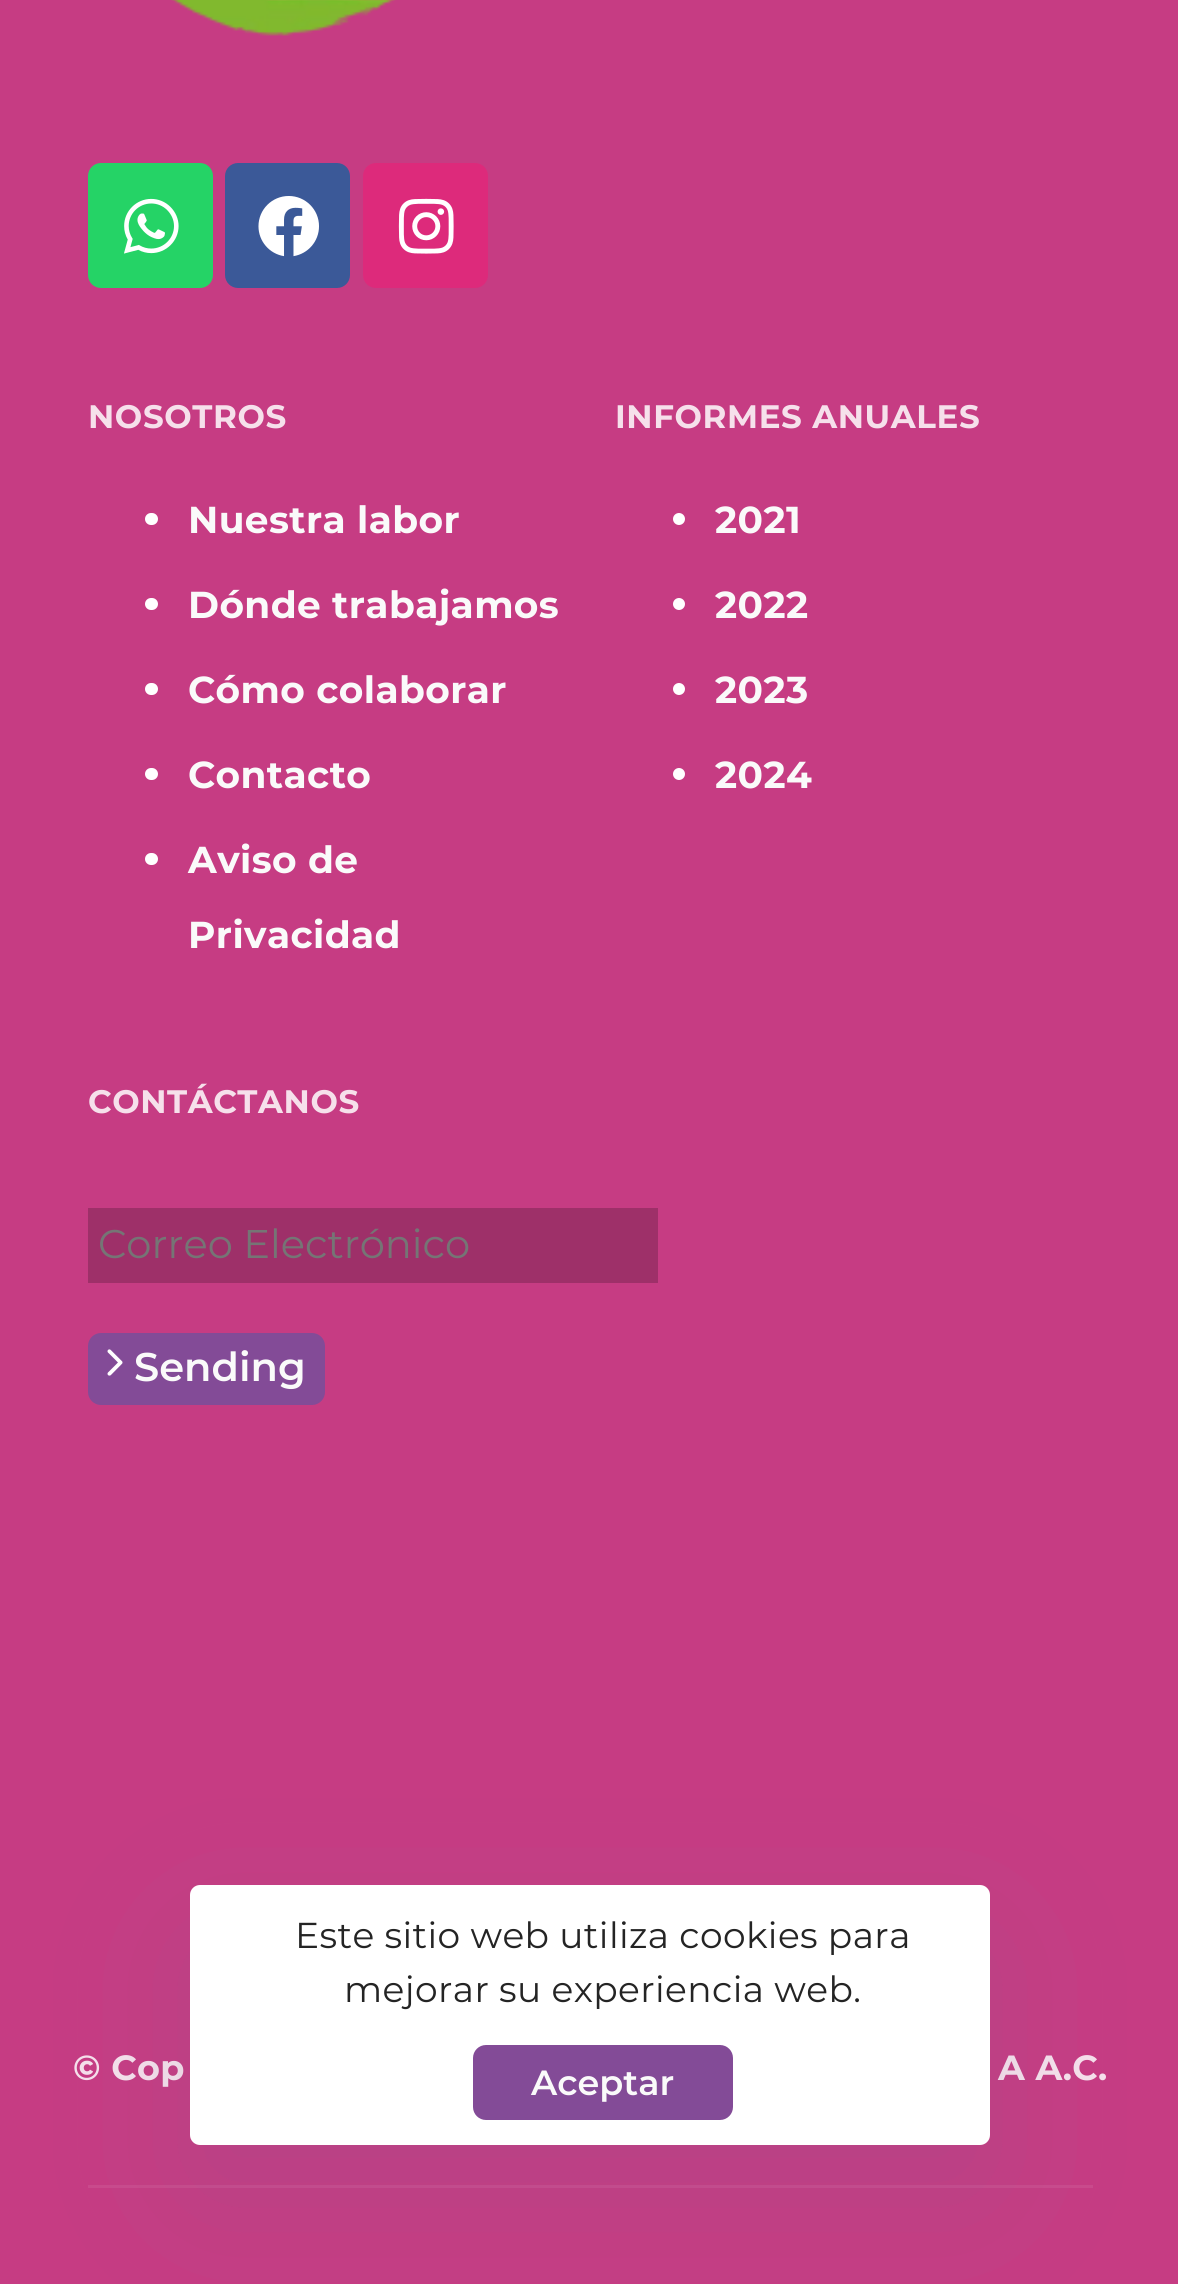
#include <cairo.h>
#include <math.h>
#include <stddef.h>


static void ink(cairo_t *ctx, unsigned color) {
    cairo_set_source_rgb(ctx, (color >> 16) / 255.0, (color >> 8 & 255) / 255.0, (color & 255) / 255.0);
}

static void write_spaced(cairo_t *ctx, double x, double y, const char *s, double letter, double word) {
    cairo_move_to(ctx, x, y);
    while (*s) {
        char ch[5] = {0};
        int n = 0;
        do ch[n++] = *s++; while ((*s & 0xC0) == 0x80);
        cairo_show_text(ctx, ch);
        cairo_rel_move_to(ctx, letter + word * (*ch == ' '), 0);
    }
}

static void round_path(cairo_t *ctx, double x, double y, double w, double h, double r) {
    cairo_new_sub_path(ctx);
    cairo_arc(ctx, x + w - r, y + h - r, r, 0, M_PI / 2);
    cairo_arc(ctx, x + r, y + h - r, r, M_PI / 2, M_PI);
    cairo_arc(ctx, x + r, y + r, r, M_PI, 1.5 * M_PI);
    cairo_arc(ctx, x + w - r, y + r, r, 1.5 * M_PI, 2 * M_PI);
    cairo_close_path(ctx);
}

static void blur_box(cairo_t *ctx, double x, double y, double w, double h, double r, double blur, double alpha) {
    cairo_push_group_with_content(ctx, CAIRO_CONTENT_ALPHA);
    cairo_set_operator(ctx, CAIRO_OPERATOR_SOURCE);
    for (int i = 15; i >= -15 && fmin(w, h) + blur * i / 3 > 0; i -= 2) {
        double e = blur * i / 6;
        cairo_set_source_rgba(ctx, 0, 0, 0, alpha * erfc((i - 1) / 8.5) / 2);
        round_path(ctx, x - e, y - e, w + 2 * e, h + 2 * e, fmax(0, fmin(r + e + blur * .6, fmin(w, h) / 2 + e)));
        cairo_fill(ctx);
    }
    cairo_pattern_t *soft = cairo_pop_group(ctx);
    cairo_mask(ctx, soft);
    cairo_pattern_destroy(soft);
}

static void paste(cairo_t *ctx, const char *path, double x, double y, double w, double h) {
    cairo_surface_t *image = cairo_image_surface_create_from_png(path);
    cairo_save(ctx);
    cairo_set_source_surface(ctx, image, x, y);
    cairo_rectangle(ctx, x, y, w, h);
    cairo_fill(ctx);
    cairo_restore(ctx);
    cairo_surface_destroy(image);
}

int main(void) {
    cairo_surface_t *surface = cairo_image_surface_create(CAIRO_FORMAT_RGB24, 1178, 2284);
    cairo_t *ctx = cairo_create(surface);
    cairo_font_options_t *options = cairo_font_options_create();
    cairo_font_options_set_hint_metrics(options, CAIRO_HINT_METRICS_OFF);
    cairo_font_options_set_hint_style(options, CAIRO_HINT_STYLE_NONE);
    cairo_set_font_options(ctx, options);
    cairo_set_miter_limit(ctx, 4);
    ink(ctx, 0xC63C83);
    cairo_paint(ctx);
    paste(ctx, "media/1.png", 171, 0, 225, 36);
    ink(ctx, 0x25D366);
    round_path(ctx, 88, 163, 125, 125, 13);
    cairo_fill(ctx);
    paste(ctx, "media/2.png", 124, 198, 55, 56);
    ink(ctx, 0x3B5998);
    round_path(ctx, 225, 163, 125, 125, 13);
    cairo_fill(ctx);
    paste(ctx, "media/3.png", 258, 196, 61, 61);
    ink(ctx, 0xDD2A7B);
    round_path(ctx, 363, 163, 125, 125, 13);
    cairo_fill(ctx);
    paste(ctx, "media/4.png", 398, 198, 56, 56);
    cairo_select_font_face(ctx, "Montserrat", CAIRO_FONT_SLANT_NORMAL, CAIRO_FONT_WEIGHT_BOLD);
    cairo_set_font_size(ctx, 32.5);
    ink(ctx, 0xF6E0EB);
    write_spaced(ctx, 88, 428, "NOSOTROS", 0.6, 0);
    ink(ctx, 0xFFFFFF);
    round_path(ctx, 145, 513, 13, 12, 6);
    cairo_fill(ctx);
    cairo_set_font_size(ctx, 37.5);
    ink(ctx, 0xFAFAFA);
    write_spaced(ctx, 188, 533, "Nuestra labor", 0.4, 0);
    ink(ctx, 0xFFFFFF);
    round_path(ctx, 145, 598, 13, 12, 6);
    cairo_fill(ctx);
    ink(ctx, 0xFAFAFA);
    write_spaced(ctx, 188, 618, "Dónde trabajamos", 0.4, 0);
    ink(ctx, 0xFFFFFF);
    round_path(ctx, 145, 683, 13, 12, 6);
    cairo_fill(ctx);
    ink(ctx, 0xFAFAFA);
    write_spaced(ctx, 188, 703, "Cómo colaborar", 0.4, 0);
    ink(ctx, 0xFFFFFF);
    round_path(ctx, 145, 768, 13, 12, 6);
    cairo_fill(ctx);
    ink(ctx, 0xFAFAFA);
    write_spaced(ctx, 188, 788, "Contacto", 0.4, 0);
    ink(ctx, 0xFFFFFF);
    round_path(ctx, 145, 853, 13, 12, 6);
    cairo_fill(ctx);
    ink(ctx, 0xFAFAFA);
    write_spaced(ctx, 188, 873, "Aviso de", 0.4, 0);
    write_spaced(ctx, 188, 948, "Privacidad", 0.4, 0);
    cairo_set_font_size(ctx, 32.5);
    ink(ctx, 0xF6E0EB);
    write_spaced(ctx, 615, 428, "INFORMES ANUALES", 0.6, 0);
    ink(ctx, 0xFFFFFF);
    cairo_new_path(ctx);
    cairo_arc(ctx, 679, 519, 6, 0, 2 * M_PI);
    cairo_fill(ctx);
    cairo_set_font_size(ctx, 37.5);
    ink(ctx, 0xFAFAFA);
    write_spaced(ctx, 715, 533, "2021", 0.4, 0);
    ink(ctx, 0xFFFFFF);
    cairo_new_path(ctx);
    cairo_arc(ctx, 679, 604, 6, 0, 2 * M_PI);
    cairo_fill(ctx);
    ink(ctx, 0xFAFAFA);
    write_spaced(ctx, 715, 618, "2022", 0.4, 0);
    ink(ctx, 0xFFFFFF);
    cairo_new_path(ctx);
    cairo_arc(ctx, 679, 689, 6, 0, 2 * M_PI);
    cairo_fill(ctx);
    ink(ctx, 0xFAFAFA);
    write_spaced(ctx, 715, 703, "2023", 0.4, 0);
    ink(ctx, 0xFFFFFF);
    cairo_new_path(ctx);
    cairo_arc(ctx, 679, 774, 6, 0, 2 * M_PI);
    cairo_fill(ctx);
    ink(ctx, 0xFAFAFA);
    write_spaced(ctx, 715, 788, "2024", 0.4, 0);
    cairo_set_font_size(ctx, 32.5);
    ink(ctx, 0xF6E0EB);
    write_spaced(ctx, 88, 1113, "CONTÁCTANOS", 0.6, 0);
    ink(ctx, 0x9E3069);
    cairo_rectangle(ctx, 88, 1208, 570, 75);
    cairo_fill(ctx);
    cairo_select_font_face(ctx, "Montserrat", CAIRO_FONT_SLANT_NORMAL, CAIRO_FONT_WEIGHT_NORMAL);
    cairo_set_font_size(ctx, 40);
    ink(ctx, 0x757575);
    cairo_move_to(ctx, 98, 1258);
    cairo_show_text(ctx, "Correo Electrónico");
    ink(ctx, 0x834B97);
    round_path(ctx, 88, 1333, 237, 72, 13);
    cairo_fill(ctx);
    paste(ctx, "media/5.png", 107, 1349, 16, 27);
    cairo_select_font_face(ctx, "Montserrat SemiBold", CAIRO_FONT_SLANT_NORMAL, CAIRO_FONT_WEIGHT_NORMAL);
    ink(ctx, 0xFAFAFA);
    cairo_move_to(ctx, 134, 1381);
    cairo_show_text(ctx, "Sending");
    cairo_select_font_face(ctx, "Montserrat", CAIRO_FONT_SLANT_NORMAL, CAIRO_FONT_WEIGHT_BOLD);
    cairo_set_font_size(ctx, 35);
    ink(ctx, 0xF6E0EB);
    write_spaced(ctx, 73, 2080, "© Cop", 0.4, 0);
    write_spaced(ctx, 998, 2080, "A A.C.", 0.4, 0);
    ink(ctx, 0xCA4A8C);
    cairo_rectangle(ctx, 88, 2185, 1005, 3);
    cairo_fill(ctx);
    ink(ctx, 0x5C6B95);
    blur_box(ctx, 190, 1935, 800, 260, 10, 75, 0.15);
    ink(ctx, 0xFFFFFF);
    round_path(ctx, 190, 1885, 800, 260, 10);
    cairo_fill(ctx);
    cairo_select_font_face(ctx, "Montserrat", CAIRO_FONT_SLANT_NORMAL, CAIRO_FONT_WEIGHT_NORMAL);
    cairo_set_font_size(ctx, 36);
    ink(ctx, 0x242424);
    write_spaced(ctx, 295, 1948, "Este sitio web utiliza cookies para", 0.4, 0);
    write_spaced(ctx, 344, 2002, "mejorar su experiencia web.", 0.4, 0);
    ink(ctx, 0x834B97);
    round_path(ctx, 473, 2045, 260, 75, 13);
    cairo_fill(ctx);
    cairo_select_font_face(ctx, "Montserrat SemiBold", CAIRO_FONT_SLANT_NORMAL, CAIRO_FONT_WEIGHT_NORMAL);
    cairo_set_font_size(ctx, 35);
    ink(ctx, 0xFAFAFA);
    cairo_move_to(ctx, 531, 2095);
    cairo_show_text(ctx, "Aceptar");
    cairo_surface_write_to_png(surface, "image.png");
    cairo_font_options_destroy(options);
    cairo_destroy(ctx);
    cairo_surface_destroy(surface);
    return 0;
}
